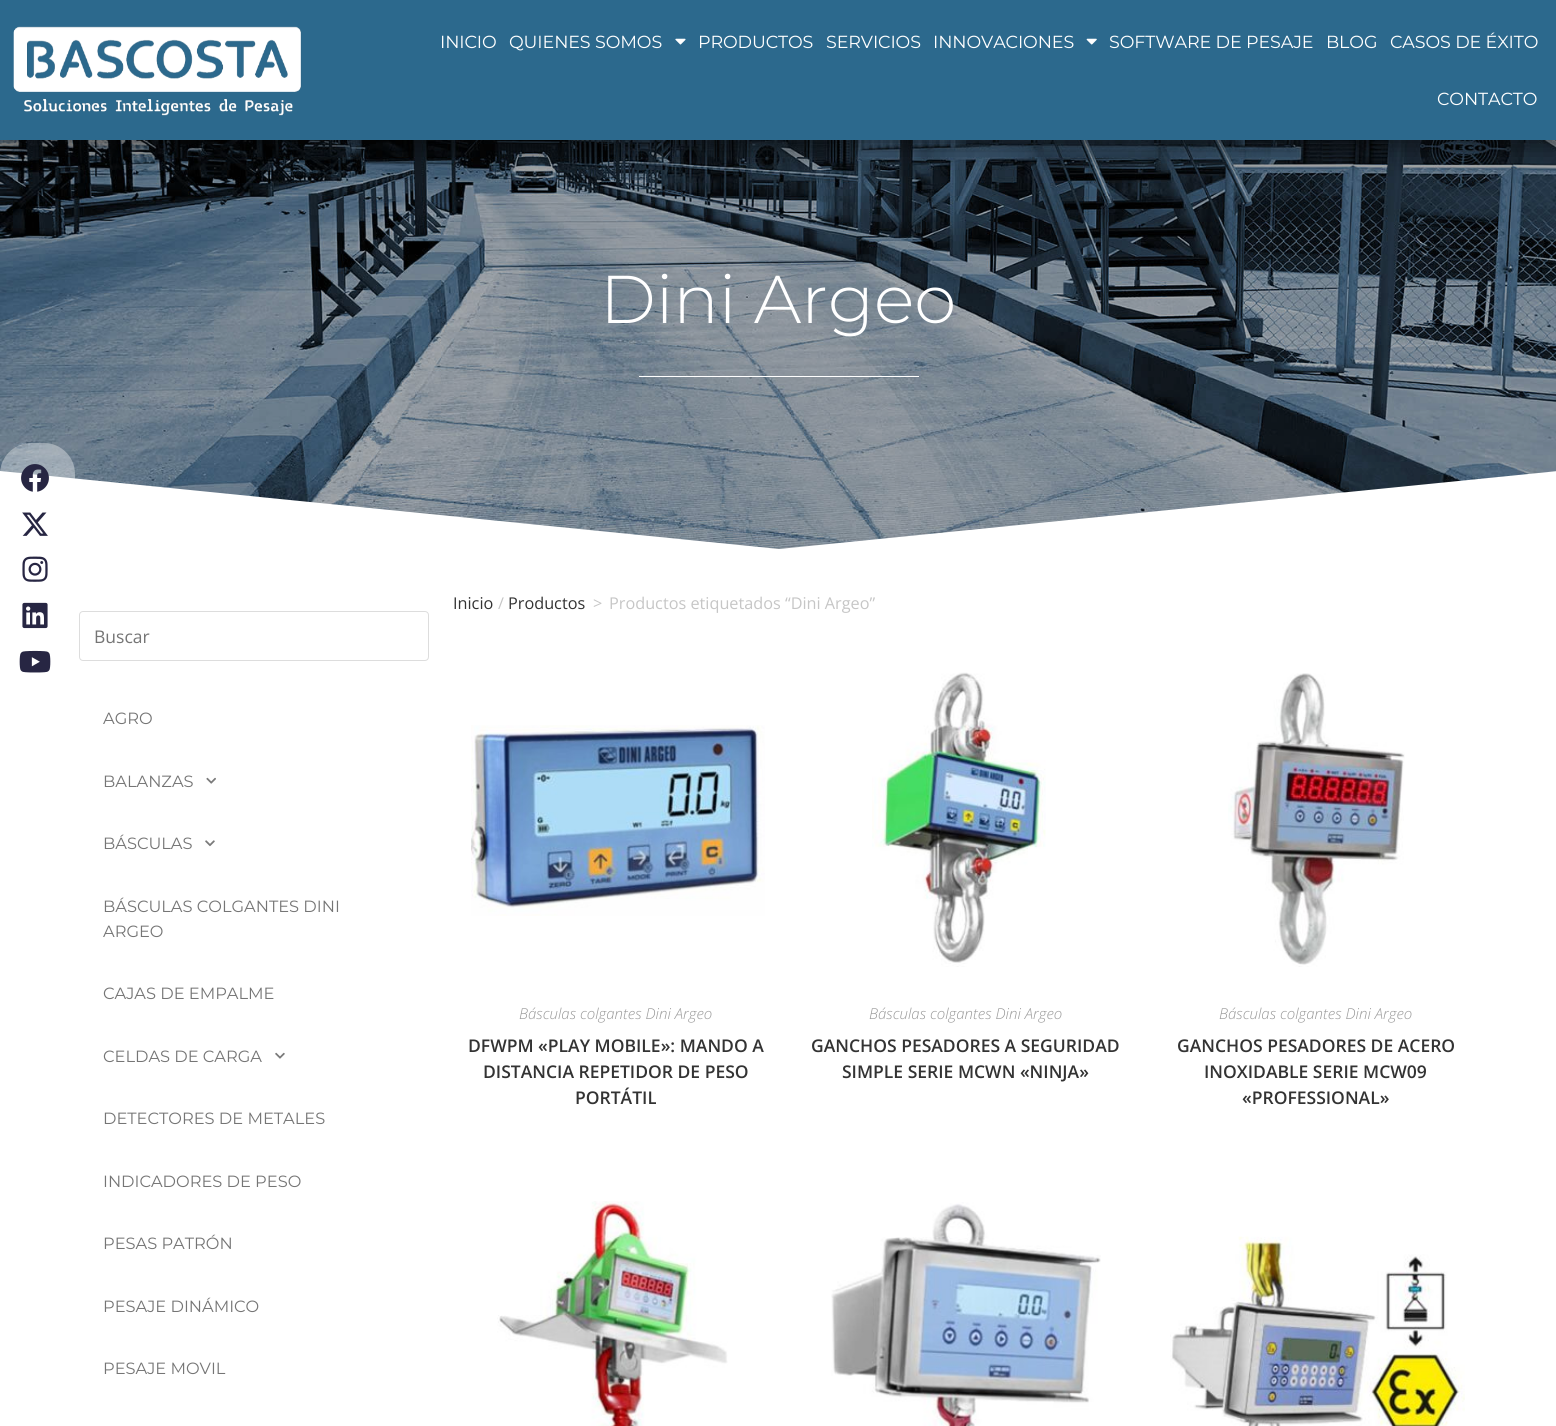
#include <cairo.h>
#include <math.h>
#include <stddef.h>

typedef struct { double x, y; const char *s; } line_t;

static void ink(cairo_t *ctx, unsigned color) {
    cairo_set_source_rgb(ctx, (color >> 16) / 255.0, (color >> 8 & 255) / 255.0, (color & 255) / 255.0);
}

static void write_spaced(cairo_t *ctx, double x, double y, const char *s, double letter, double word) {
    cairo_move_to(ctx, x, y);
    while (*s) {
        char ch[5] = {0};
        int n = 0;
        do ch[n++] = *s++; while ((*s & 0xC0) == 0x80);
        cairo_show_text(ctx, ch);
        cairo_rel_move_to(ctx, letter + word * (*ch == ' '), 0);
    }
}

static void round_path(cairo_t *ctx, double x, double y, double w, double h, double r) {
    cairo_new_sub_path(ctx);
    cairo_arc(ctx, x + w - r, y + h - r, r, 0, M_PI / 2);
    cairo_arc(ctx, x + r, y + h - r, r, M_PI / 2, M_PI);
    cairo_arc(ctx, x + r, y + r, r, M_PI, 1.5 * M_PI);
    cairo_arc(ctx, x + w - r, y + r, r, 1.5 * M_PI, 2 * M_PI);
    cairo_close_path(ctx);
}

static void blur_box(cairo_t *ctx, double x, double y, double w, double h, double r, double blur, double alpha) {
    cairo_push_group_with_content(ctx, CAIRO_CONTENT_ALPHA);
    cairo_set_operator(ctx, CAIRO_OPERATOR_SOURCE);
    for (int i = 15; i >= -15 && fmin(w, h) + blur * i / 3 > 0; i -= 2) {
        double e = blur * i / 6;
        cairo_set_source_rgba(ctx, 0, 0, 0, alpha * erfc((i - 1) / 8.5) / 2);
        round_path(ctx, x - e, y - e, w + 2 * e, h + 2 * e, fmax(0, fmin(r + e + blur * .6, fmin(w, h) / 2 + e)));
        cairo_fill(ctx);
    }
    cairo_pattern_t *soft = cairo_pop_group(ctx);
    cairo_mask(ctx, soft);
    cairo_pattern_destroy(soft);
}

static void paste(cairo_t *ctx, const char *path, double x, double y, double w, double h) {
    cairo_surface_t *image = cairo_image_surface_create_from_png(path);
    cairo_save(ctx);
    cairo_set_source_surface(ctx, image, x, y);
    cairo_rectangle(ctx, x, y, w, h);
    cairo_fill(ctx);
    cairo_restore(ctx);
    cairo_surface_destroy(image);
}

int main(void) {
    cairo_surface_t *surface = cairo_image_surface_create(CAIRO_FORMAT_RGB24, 1556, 1426);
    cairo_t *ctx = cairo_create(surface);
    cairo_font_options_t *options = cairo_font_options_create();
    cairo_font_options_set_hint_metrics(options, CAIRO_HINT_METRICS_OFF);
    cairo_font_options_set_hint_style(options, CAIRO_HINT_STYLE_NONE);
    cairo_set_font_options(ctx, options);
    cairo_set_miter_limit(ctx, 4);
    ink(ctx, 0xFFFFFF);
    cairo_paint(ctx);
    paste(ctx, "media/9.png", 0, 140, 1556, 409);
    ink(ctx, 0xFFFFFF);
    cairo_new_path(ctx);
    cairo_move_to(ctx, 779, 549);
    cairo_line_to(ctx, 0, 471);
    cairo_line_to(ctx, 0, 554);
    cairo_line_to(ctx, 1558, 554);
    cairo_line_to(ctx, 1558, 471);
    cairo_close_path(ctx);
    cairo_fill(ctx);
    cairo_set_source_rgba(ctx, 1, 1, 1, 0.36);
    round_path(ctx, 0, 443, 75, 255, 31);
    cairo_fill(ctx);
    paste(ctx, "media/1.png", 21, 464, 28, 28);
    paste(ctx, "media/2.png", 22, 512, 26, 24);
    paste(ctx, "media/3.png", 22, 556, 26, 26);
    paste(ctx, "media/4.png", 22, 602, 26, 27);
    paste(ctx, "media/5.png", 19, 650, 32, 23);
    ink(ctx, 0x000000);
    blur_box(ctx, -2, 5, 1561, 145, 0, 14, 0.5);
    ink(ctx, 0x2C698D);
    cairo_rectangle(ctx, 0, 0, 1556, 140);
    cairo_fill(ctx);
    paste(ctx, "media/6.png", 13, 26, 289, 90);
    cairo_select_font_face(ctx, "Montserrat", CAIRO_FONT_SLANT_NORMAL, CAIRO_FONT_WEIGHT_NORMAL);
    cairo_set_font_size(ctx, 17.5);
    ink(ctx, 0xFFFFFF);
    write_spaced(ctx, 440, 48, "INICIO", -0.1, 0);
    write_spaced(ctx, 509, 48, "QUIENES SOMOS", -0.1, 0);
    paste(ctx, "media/7.png", 675, 38, 11, 7);
    {
        static const line_t items[] = {
            {698, 48, "PRODUCTOS"},
            {826, 48, "SERVICIOS"},
            {933, 48, "INNOVACIONES"},
        };
        for (size_t i = 0; i < sizeof items / sizeof *items; i++) {
            write_spaced(ctx, items[i].x, items[i].y, items[i].s, -0.1, 0);
        }
    }
    paste(ctx, "media/8.png", 1086, 38, 11, 7);
    {
        static const line_t items[] = {
            {1109, 48, "SOFTWARE DE PESAJE"},
            {1326, 48, "BLOG"},
            {1390, 48, "CASOS DE ÉXITO"},
            {1437, 105, "CONTACTO"},
        };
        for (size_t i = 0; i < sizeof items / sizeof *items; i++) {
            write_spaced(ctx, items[i].x, items[i].y, items[i].s, -0.1, 0);
        }
    }
    cairo_select_font_face(ctx, "Montserrat Light", CAIRO_FONT_SLANT_NORMAL, CAIRO_FONT_WEIGHT_NORMAL);
    cairo_set_font_size(ctx, 67.5);
    cairo_move_to(ctx, 600, 323);
    cairo_show_text(ctx, "Dini Argeo");
    cairo_rectangle(ctx, 639, 376, 280, 1);
    cairo_fill(ctx);
    round_path(ctx, 79.5, 611.5, 349, 49, 3.5);
    ink(ctx, 0xDDDDDD);
    cairo_set_line_width(ctx, 1);
    cairo_stroke(ctx);
    cairo_select_font_face(ctx, "Open Sans", CAIRO_FONT_SLANT_NORMAL, CAIRO_FONT_WEIGHT_NORMAL);
    cairo_set_font_size(ctx, 17.5);
    ink(ctx, 0x757575);
    cairo_move_to(ctx, 94, 643);
    cairo_show_text(ctx, "Buscar");
    cairo_select_font_face(ctx, "Montserrat", CAIRO_FONT_SLANT_NORMAL, CAIRO_FONT_WEIGHT_NORMAL);
    cairo_set_font_size(ctx, 16.25);
    cairo_move_to(ctx, 103, 724);
    cairo_show_text(ctx, "AGRO");
    cairo_move_to(ctx, 103, 787);
    cairo_show_text(ctx, "BALANZAS");
    paste(ctx, "media/10.png", 206, 777, 10, 7);
    cairo_move_to(ctx, 103, 849);
    cairo_show_text(ctx, "BÁSCULAS");
    paste(ctx, "media/11.png", 205, 840, 10, 7);
    {
        static const line_t items[] = {
            {103, 912, "BÁSCULAS COLGANTES DINI"},
            {103, 937, "ARGEO"},
            {103, 999, "CAJAS DE EMPALME"},
            {103, 1062, "CELDAS DE CARGA"},
        };
        for (size_t i = 0; i < sizeof items / sizeof *items; i++) {
            cairo_move_to(ctx, items[i].x, items[i].y);
            cairo_show_text(ctx, items[i].s);
        }
    }
    paste(ctx, "media/12.png", 275, 1052, 10, 7);
    {
        static const line_t items[] = {
            {103, 1124, "DETECTORES DE METALES"},
            {103, 1187, "INDICADORES DE PESO"},
            {103, 1249, "PESAS PATRÓN"},
            {103, 1312, "PESAJE DINÁMICO"},
            {103, 1374, "PESAJE MOVIL"},
        };
        for (size_t i = 0; i < sizeof items / sizeof *items; i++) {
            cairo_move_to(ctx, items[i].x, items[i].y);
            cairo_show_text(ctx, items[i].s);
        }
    }
    cairo_select_font_face(ctx, "Open Sans", CAIRO_FONT_SLANT_NORMAL, CAIRO_FONT_WEIGHT_NORMAL);
    ink(ctx, 0x333333);
    cairo_move_to(ctx, 453, 609);
    cairo_show_text(ctx, "Inicio");
    ink(ctx, 0xC6C6C6);
    cairo_move_to(ctx, 498, 609);
    cairo_show_text(ctx, "/");
    ink(ctx, 0x333333);
    cairo_move_to(ctx, 508, 609);
    cairo_show_text(ctx, "Productos");
    ink(ctx, 0xC6C6C6);
    cairo_move_to(ctx, 593, 609);
    cairo_show_text(ctx, ">");
    cairo_move_to(ctx, 609, 609);
    cairo_show_text(ctx, "Productos etiquetados “Dini Argeo”");
    paste(ctx, "media/13.png", 471, 725, 294, 191);
    cairo_select_font_face(ctx, "Open Sans Light", CAIRO_FONT_SLANT_ITALIC, CAIRO_FONT_WEIGHT_NORMAL);
    cairo_set_font_size(ctx, 15);
    ink(ctx, 0x999999);
    cairo_move_to(ctx, 519, 1019);
    cairo_show_text(ctx, "Básculas colgantes Dini Argeo");
    cairo_select_font_face(ctx, "Open Sans SemiBold", CAIRO_FONT_SLANT_NORMAL, CAIRO_FONT_WEIGHT_NORMAL);
    cairo_set_font_size(ctx, 17.5);
    ink(ctx, 0x333333);
    {
        static const line_t items[] = {
            {468, 1052, "DFWPM «PLAY MOBILE»: MANDO A"},
            {483, 1078, "DISTANCIA REPETIDOR DE PESO"},
            {575, 1104, "PORTÁTIL"},
        };
        for (size_t i = 0; i < sizeof items / sizeof *items; i++) {
            cairo_move_to(ctx, items[i].x, items[i].y);
            cairo_show_text(ctx, items[i].s);
        }
    }
    paste(ctx, "media/14.png", 872, 672, 174, 295);
    cairo_select_font_face(ctx, "Open Sans Light", CAIRO_FONT_SLANT_ITALIC, CAIRO_FONT_WEIGHT_NORMAL);
    cairo_set_font_size(ctx, 15);
    ink(ctx, 0x999999);
    cairo_move_to(ctx, 869, 1019);
    cairo_show_text(ctx, "Básculas colgantes Dini Argeo");
    cairo_select_font_face(ctx, "Open Sans SemiBold", CAIRO_FONT_SLANT_NORMAL, CAIRO_FONT_WEIGHT_NORMAL);
    cairo_set_font_size(ctx, 17.5);
    ink(ctx, 0x333333);
    cairo_move_to(ctx, 811, 1052);
    cairo_show_text(ctx, "GANCHOS PESADORES A SEGURIDAD");
    cairo_move_to(ctx, 842, 1078);
    cairo_show_text(ctx, "SIMPLE SERIE MCWN «NINJA»");
    paste(ctx, "media/15.png", 1228, 673, 177, 294);
    cairo_select_font_face(ctx, "Open Sans Light", CAIRO_FONT_SLANT_ITALIC, CAIRO_FONT_WEIGHT_NORMAL);
    cairo_set_font_size(ctx, 15);
    ink(ctx, 0x999999);
    cairo_move_to(ctx, 1219, 1019);
    cairo_show_text(ctx, "Básculas colgantes Dini Argeo");
    cairo_select_font_face(ctx, "Open Sans SemiBold", CAIRO_FONT_SLANT_NORMAL, CAIRO_FONT_WEIGHT_NORMAL);
    cairo_set_font_size(ctx, 17.5);
    ink(ctx, 0x333333);
    {
        static const line_t items[] = {
            {1177, 1052, "GANCHOS PESADORES DE ACERO"},
            {1204, 1078, "INOXIDABLE SERIE MCW09"},
            {1242, 1104, "«PROFESSIONAL»"},
        };
        for (size_t i = 0; i < sizeof items / sizeof *items; i++) {
            cairo_move_to(ctx, items[i].x, items[i].y);
            cairo_show_text(ctx, items[i].s);
        }
    }
    paste(ctx, "media/16.png", 497, 1201, 231, 225);
    paste(ctx, "media/17.png", 831, 1202, 270, 224);
    paste(ctx, "media/18.png", 1170, 1236, 295, 190);
    cairo_surface_write_to_png(surface, "image.png");
    cairo_font_options_destroy(options);
    cairo_destroy(ctx);
    cairo_surface_destroy(surface);
    return 0;
}
